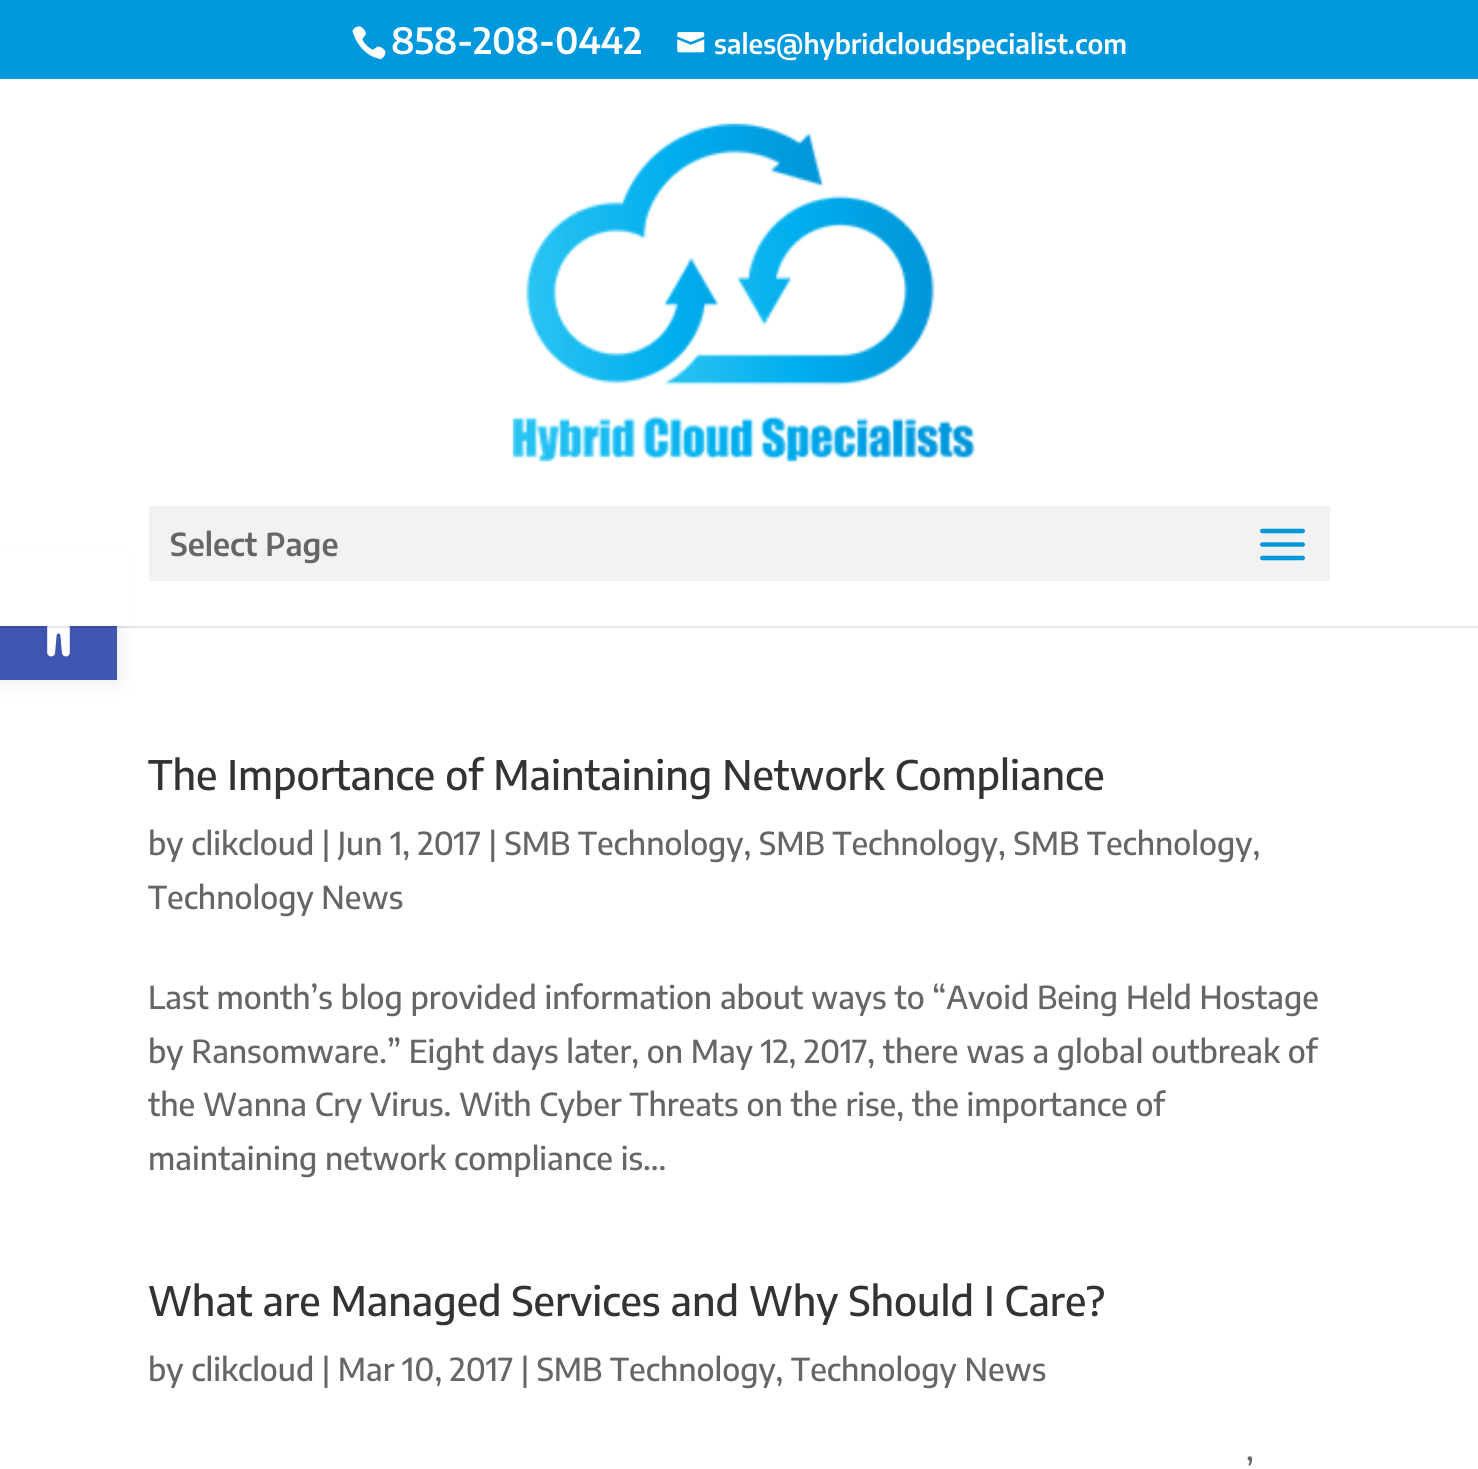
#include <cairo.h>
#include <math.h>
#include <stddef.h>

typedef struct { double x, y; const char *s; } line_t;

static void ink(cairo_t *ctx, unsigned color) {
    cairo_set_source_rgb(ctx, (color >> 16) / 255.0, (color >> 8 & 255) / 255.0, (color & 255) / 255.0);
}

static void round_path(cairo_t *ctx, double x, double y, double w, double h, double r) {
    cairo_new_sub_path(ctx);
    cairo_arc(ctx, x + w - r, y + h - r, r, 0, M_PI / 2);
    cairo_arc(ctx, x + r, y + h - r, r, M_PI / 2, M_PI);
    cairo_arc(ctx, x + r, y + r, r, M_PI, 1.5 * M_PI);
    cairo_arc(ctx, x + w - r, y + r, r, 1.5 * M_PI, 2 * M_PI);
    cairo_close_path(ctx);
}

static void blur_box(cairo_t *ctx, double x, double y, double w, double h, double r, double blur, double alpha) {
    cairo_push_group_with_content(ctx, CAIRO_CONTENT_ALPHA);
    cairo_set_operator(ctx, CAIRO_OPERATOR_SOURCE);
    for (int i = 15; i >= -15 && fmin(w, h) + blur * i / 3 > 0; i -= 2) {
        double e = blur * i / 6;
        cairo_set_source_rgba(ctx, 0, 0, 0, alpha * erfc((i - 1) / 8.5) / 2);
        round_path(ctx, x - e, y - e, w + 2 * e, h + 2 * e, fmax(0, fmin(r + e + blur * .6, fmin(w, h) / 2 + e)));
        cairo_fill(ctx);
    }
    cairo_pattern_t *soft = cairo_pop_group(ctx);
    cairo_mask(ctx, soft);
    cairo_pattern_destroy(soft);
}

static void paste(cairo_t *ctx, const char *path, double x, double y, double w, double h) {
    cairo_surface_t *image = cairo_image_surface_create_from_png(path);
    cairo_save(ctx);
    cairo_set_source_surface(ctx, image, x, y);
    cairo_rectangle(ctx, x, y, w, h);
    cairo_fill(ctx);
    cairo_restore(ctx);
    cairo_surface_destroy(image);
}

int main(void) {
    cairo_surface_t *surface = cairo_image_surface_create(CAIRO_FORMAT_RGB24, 1478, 1469);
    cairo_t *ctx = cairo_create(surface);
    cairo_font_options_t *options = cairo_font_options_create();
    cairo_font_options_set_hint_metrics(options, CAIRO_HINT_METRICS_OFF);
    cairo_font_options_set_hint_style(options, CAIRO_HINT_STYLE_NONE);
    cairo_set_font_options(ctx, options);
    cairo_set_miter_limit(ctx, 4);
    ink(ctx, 0xFFFFFF);
    cairo_paint(ctx);
    ink(ctx, 0x000000);
    blur_box(ctx, 0, 563, 117, 117, 0, 11, 0.1);
    ink(ctx, 0x4054B2);
    cairo_rectangle(ctx, 0, 626, 117, 54);
    cairo_fill(ctx);
    paste(ctx, "media/1.png", 47, 626, 23, 31);
    ink(ctx, 0x0098DC);
    cairo_rectangle(ctx, 0, 0, 1478, 79);
    cairo_fill(ctx);
    paste(ctx, "media/2.png", 352, 26, 34, 34);
    cairo_select_font_face(ctx, "Encode Sans Condensed SemiBold", CAIRO_FONT_SLANT_NORMAL, CAIRO_FONT_WEIGHT_NORMAL);
    cairo_set_font_size(ctx, 36);
    ink(ctx, 0xFFFFFF);
    cairo_move_to(ctx, 391, 54);
    cairo_show_text(ctx, "858-208-0442");
    paste(ctx, "media/3.png", 677, 32, 28, 21);
    cairo_set_font_size(ctx, 27);
    cairo_move_to(ctx, 714, 54);
    cairo_show_text(ctx, "sales@hybridcloudspecialist.com");
    cairo_set_source_rgba(ctx, 0, 0, 0, 0.1);
    cairo_rectangle(ctx, 0, 626, 1478, 2);
    cairo_fill(ctx);
    ink(ctx, 0xFFFFFF);
    cairo_rectangle(ctx, 0, 549, 131, 77);
    cairo_fill(ctx);
    paste(ctx, "media/4.png", 512, 123, 463, 339);
    ink(ctx, 0xF2F2F2);
    cairo_rectangle(ctx, 149, 506, 1181, 75);
    cairo_fill(ctx);
    cairo_set_font_size(ctx, 31.5);
    ink(ctx, 0x666666);
    cairo_move_to(ctx, 170, 556);
    cairo_show_text(ctx, "Select Page");
    paste(ctx, "media/5.png", 1260, 528, 45, 33);
    cairo_select_font_face(ctx, "Encode Sans Condensed Medium", CAIRO_FONT_SLANT_NORMAL, CAIRO_FONT_WEIGHT_NORMAL);
    cairo_set_font_size(ctx, 40.5);
    ink(ctx, 0x333333);
    cairo_move_to(ctx, 148, 790);
    cairo_show_text(ctx, "The Importance of Maintaining Network Compliance");
    cairo_set_font_size(ctx, 31.5);
    ink(ctx, 0x666666);
    {
        static const line_t items[] = {
            {148, 855, "by clikcloud | Jun 1, 2017 | SMB Technology, SMB Technology, SMB Technology,"},
            {148, 909, "Technology News"},
            {148, 1009, "Last month’s blog provided information about ways to “Avoid Being Held Hostage"},
            {148, 1063, "by Ransomware.” Eight days later, on May 12, 2017, there was a global outbreak of"},
            {148, 1116, "the Wanna Cry Virus. With Cyber Threats on the rise, the importance of"},
            {148, 1170, "maintaining network compliance is..."},
        };
        for (size_t i = 0; i < sizeof items / sizeof *items; i++) {
            cairo_move_to(ctx, items[i].x, items[i].y);
            cairo_show_text(ctx, items[i].s);
        }
    }
    cairo_set_font_size(ctx, 40.5);
    ink(ctx, 0x333333);
    cairo_move_to(ctx, 148, 1316);
    cairo_show_text(ctx, "What are Managed Services and Why Should I Care?");
    cairo_set_font_size(ctx, 31.5);
    ink(ctx, 0x666666);
    cairo_move_to(ctx, 148, 1381);
    cairo_show_text(ctx, "by clikcloud | Mar 10, 2017 | SMB Technology, Technology News");
    cairo_move_to(ctx, 1246, 1482);
    cairo_show_text(ctx, "’");
    cairo_surface_write_to_png(surface, "image.png");
    cairo_font_options_destroy(options);
    cairo_destroy(ctx);
    cairo_surface_destroy(surface);
    return 0;
}
